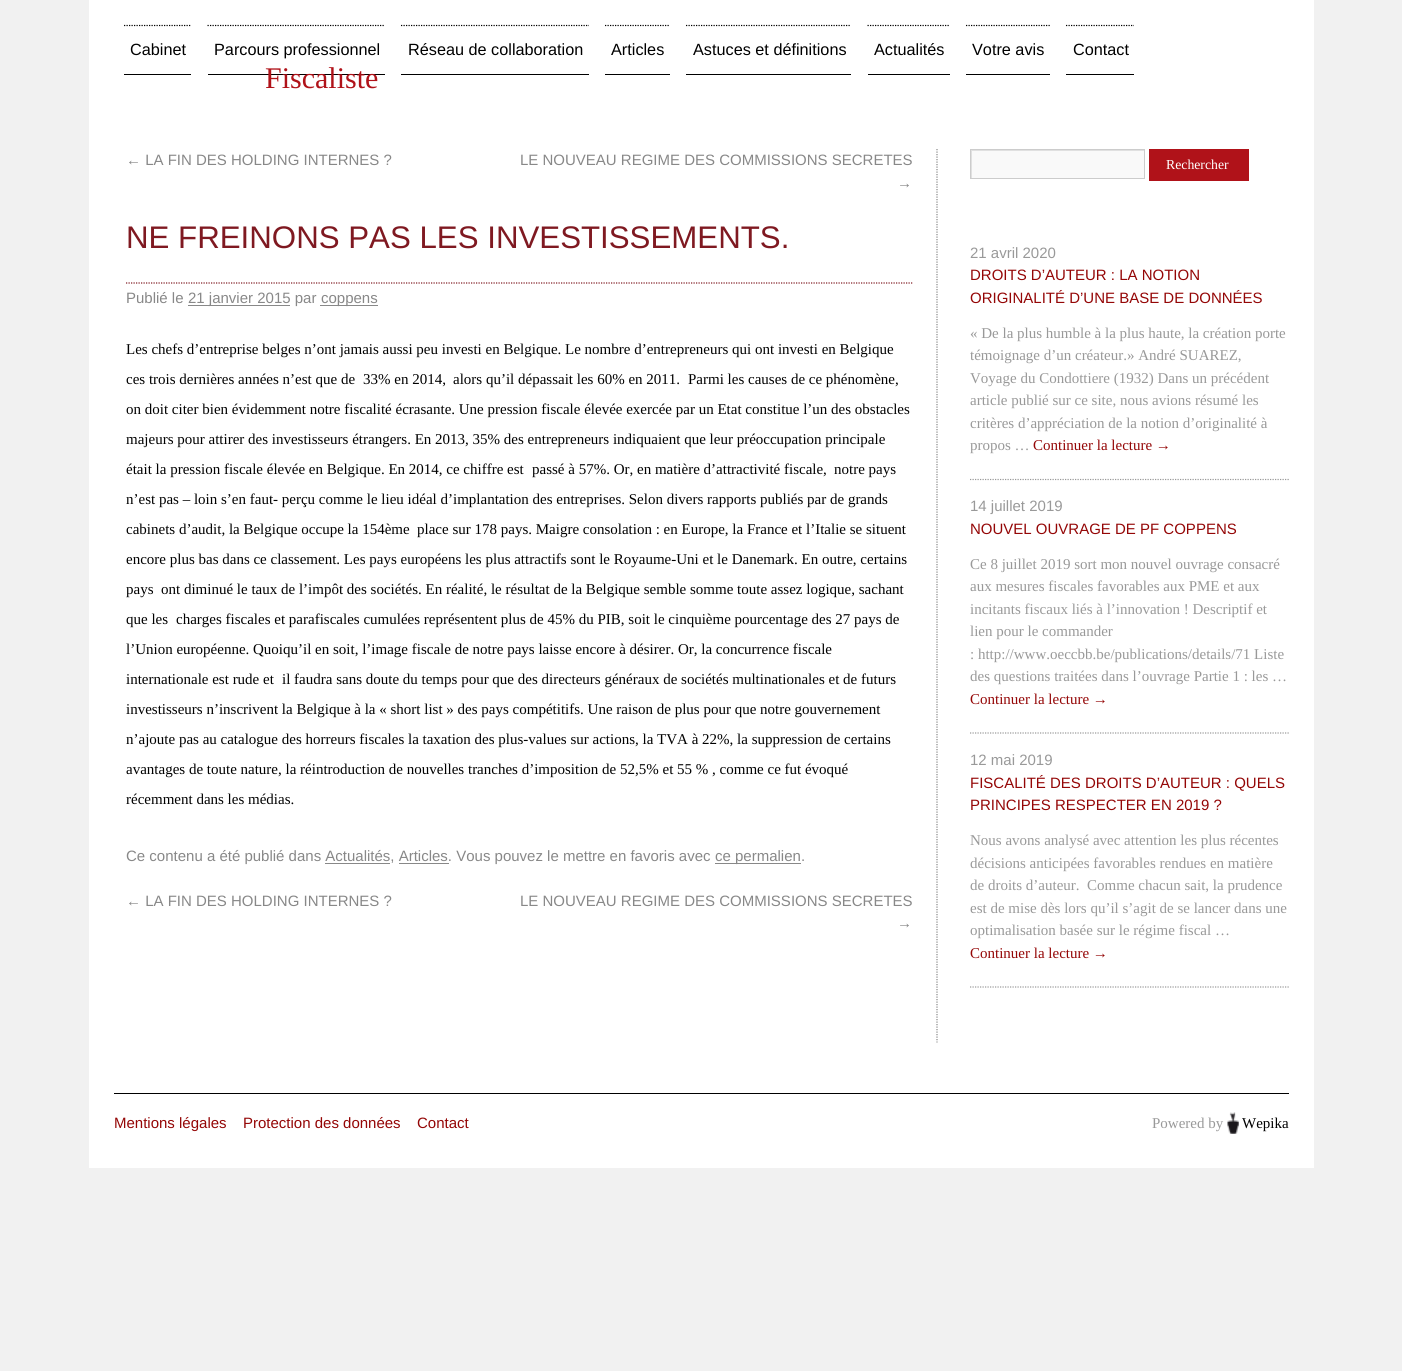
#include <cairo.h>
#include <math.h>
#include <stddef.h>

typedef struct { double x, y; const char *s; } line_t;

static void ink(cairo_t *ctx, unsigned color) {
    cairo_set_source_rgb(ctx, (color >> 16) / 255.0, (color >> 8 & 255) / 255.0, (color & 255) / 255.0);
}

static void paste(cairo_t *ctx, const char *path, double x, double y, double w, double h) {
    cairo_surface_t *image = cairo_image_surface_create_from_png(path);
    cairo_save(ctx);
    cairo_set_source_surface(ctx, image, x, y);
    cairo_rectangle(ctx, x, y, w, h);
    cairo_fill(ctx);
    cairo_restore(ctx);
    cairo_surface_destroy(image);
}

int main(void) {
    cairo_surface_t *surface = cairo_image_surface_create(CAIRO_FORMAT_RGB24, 1402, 1371);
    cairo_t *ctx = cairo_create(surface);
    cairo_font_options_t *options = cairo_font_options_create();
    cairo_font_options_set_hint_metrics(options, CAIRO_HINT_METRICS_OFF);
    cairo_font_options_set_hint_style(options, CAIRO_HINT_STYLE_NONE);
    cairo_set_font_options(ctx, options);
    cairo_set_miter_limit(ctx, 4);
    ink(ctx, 0xF1F1F1);
    cairo_paint(ctx);
    ink(ctx, 0xFFFFFF);
    cairo_rectangle(ctx, 89, 0, 1225, 1168);
    cairo_fill(ctx);
    cairo_new_path(ctx);
    cairo_move_to(ctx, 124, 25.5);
    cairo_line_to(ctx, 191, 25.5);
    ink(ctx, 0x000000);
    cairo_set_line_width(ctx, 1.2);
    cairo_set_dash(ctx, (double[]){1.25, 1.25}, 2, 0);
    cairo_stroke(ctx);
    cairo_rectangle(ctx, 124, 74, 67, 1);
    cairo_fill(ctx);
    cairo_select_font_face(ctx, "Liberation Sans", CAIRO_FONT_SLANT_NORMAL, CAIRO_FONT_WEIGHT_NORMAL);
    cairo_set_font_size(ctx, 16.25);
    cairo_move_to(ctx, 130, 55);
    cairo_show_text(ctx, "Cabinet");
    cairo_new_path(ctx);
    cairo_move_to(ctx, 207.5, 25.5);
    cairo_line_to(ctx, 385, 25.5);
    cairo_stroke(ctx);
    cairo_rectangle(ctx, 208, 74, 177, 1);
    cairo_fill(ctx);
    cairo_move_to(ctx, 214, 55);
    cairo_show_text(ctx, "Parcours professionnel");
    cairo_new_path(ctx);
    cairo_move_to(ctx, 401, 25.5);
    cairo_line_to(ctx, 589, 25.5);
    cairo_stroke(ctx);
    cairo_rectangle(ctx, 401, 74, 188, 1);
    cairo_fill(ctx);
    cairo_move_to(ctx, 408, 55);
    cairo_show_text(ctx, "Réseau de collaboration");
    cairo_new_path(ctx);
    cairo_move_to(ctx, 605, 25.5);
    cairo_line_to(ctx, 670, 25.5);
    cairo_stroke(ctx);
    cairo_rectangle(ctx, 605, 74, 65, 1);
    cairo_fill(ctx);
    cairo_move_to(ctx, 611, 55);
    cairo_show_text(ctx, "Articles");
    cairo_new_path(ctx);
    cairo_move_to(ctx, 686, 25.5);
    cairo_line_to(ctx, 851, 25.5);
    cairo_stroke(ctx);
    cairo_rectangle(ctx, 686, 74, 165, 1);
    cairo_fill(ctx);
    cairo_move_to(ctx, 693, 55);
    cairo_show_text(ctx, "Astuces et définitions");
    cairo_new_path(ctx);
    cairo_move_to(ctx, 867.5, 25.5);
    cairo_line_to(ctx, 950, 25.5);
    cairo_stroke(ctx);
    cairo_rectangle(ctx, 868, 74, 82, 1);
    cairo_fill(ctx);
    cairo_move_to(ctx, 874, 55);
    cairo_show_text(ctx, "Actualités");
    cairo_new_path(ctx);
    cairo_move_to(ctx, 966, 25.5);
    cairo_line_to(ctx, 1050, 25.5);
    cairo_stroke(ctx);
    cairo_rectangle(ctx, 966, 74, 84, 1);
    cairo_fill(ctx);
    cairo_move_to(ctx, 972, 55);
    cairo_show_text(ctx, "Votre avis");
    cairo_new_path(ctx);
    cairo_move_to(ctx, 1066, 25.5);
    cairo_line_to(ctx, 1134, 25.5);
    cairo_stroke(ctx);
    cairo_rectangle(ctx, 1066, 74, 68, 1);
    cairo_fill(ctx);
    cairo_move_to(ctx, 1073, 55);
    cairo_show_text(ctx, "Contact");
    cairo_select_font_face(ctx, "Liberation Serif", CAIRO_FONT_SLANT_NORMAL, CAIRO_FONT_WEIGHT_NORMAL);
    cairo_set_font_size(ctx, 30);
    ink(ctx, 0xB01219);
    cairo_move_to(ctx, 265, 88);
    cairo_show_text(ctx, "Fiscaliste");
    cairo_new_path(ctx);
    cairo_move_to(ctx, 937, 149);
    cairo_line_to(ctx, 937, 1042.5);
    ink(ctx, 0x888888);
    cairo_stroke(ctx);
    cairo_select_font_face(ctx, "Liberation Sans", CAIRO_FONT_SLANT_NORMAL, CAIRO_FONT_WEIGHT_NORMAL);
    cairo_set_font_size(ctx, 15);
    {
        static const line_t items[] = {
            {126, 165, "← LA FIN DES HOLDING INTERNES ?"},
            {520, 165, "LE NOUVEAU REGIME DES COMMISSIONS SECRETES"},
            {897, 188, "→"},
        };
        for (size_t i = 0; i < sizeof items / sizeof *items; i++) {
            cairo_move_to(ctx, items[i].x, items[i].y);
            cairo_show_text(ctx, items[i].s);
        }
    }
    cairo_new_path(ctx);
    cairo_move_to(ctx, 126, 283);
    cairo_line_to(ctx, 912.5, 283);
    ink(ctx, 0x7F1921);
    cairo_stroke(ctx);
    cairo_set_font_size(ctx, 31.25);
    cairo_move_to(ctx, 126, 248);
    cairo_show_text(ctx, "NE FREINONS PAS LES INVESTISSEMENTS.");
    cairo_set_font_size(ctx, 15);
    ink(ctx, 0x888888);
    cairo_move_to(ctx, 126, 303);
    cairo_show_text(ctx, "Publié le");
    cairo_rectangle(ctx, 188, 305, 102, 1);
    cairo_fill(ctx);
    cairo_move_to(ctx, 188, 303);
    cairo_show_text(ctx, "21 janvier 2015 par");
    cairo_rectangle(ctx, 320, 305, 58, 1);
    cairo_fill(ctx);
    cairo_move_to(ctx, 321, 303);
    cairo_show_text(ctx, "coppens");
    cairo_select_font_face(ctx, "Liberation Serif", CAIRO_FONT_SLANT_NORMAL, CAIRO_FONT_WEIGHT_NORMAL);
    ink(ctx, 0x000000);
    {
        static const line_t items[] = {
            {126, 354, "Les chefs d’entreprise belges n’ont jamais aussi peu investi en Belgique. Le nombre d’entrepreneurs qui ont investi en Belgique"},
            {126, 384, "ces trois dernières années n’est que de"},
            {363, 384, "33% en 2014,"},
            {453, 384, "alors qu’il dépassait les 60% en 2011."},
            {688, 384, "Parmi les causes de ce phénomène,"},
            {126, 414, "on doit citer bien évidemment notre fiscalité écrasante. Une pression fiscale élevée exercée par un Etat constitue l’un des obstacles"},
            {126, 444, "majeurs pour attirer des investisseurs étrangers. En 2013, 35% des entrepreneurs indiquaient que leur préoccupation principale"},
            {126, 474, "était la pression fiscale élevée en Belgique. En 2014, ce chiffre est"},
            {532, 474, "passé à 57%. Or, en matière d’attractivité fiscale,"},
            {834, 474, "notre pays"},
            {126, 504, "n’est pas – loin s’en faut- perçu comme le lieu idéal d’implantation des entreprises. Selon divers rapports publiés par de grands"},
            {126, 534, "cabinets d’audit, la Belgique occupe la 154ème"},
            {417, 534, "place sur 178 pays. Maigre consolation : en Europe, la France et l’Italie se situent"},
            {126, 564, "encore plus bas dans ce classement. Les pays européens les plus attractifs sont le Royaume-Uni et le Danemark. En outre, certains"},
            {126, 594, "pays"},
            {161, 594, "ont diminué le taux de l’impôt des sociétés. En réalité, le résultat de la Belgique semble somme toute assez logique, sachant"},
            {126, 624, "que les"},
            {176, 624, "charges fiscales et parafiscales cumulées représentent plus de 45% du PIB, soit le cinquième pourcentage des 27 pays de"},
            {126, 654, "l’Union européenne. Quoiqu’il en soit, l’image fiscale de notre pays laisse encore à désirer. Or, la concurrence fiscale"},
            {126, 684, "internationale est rude et"},
            {282, 684, "il faudra sans doute du temps pour que des directeurs généraux de sociétés multinationales et de futurs"},
            {126, 714, "investisseurs n’inscrivent la Belgique à la « short list » des pays compétitifs. Une raison de plus pour que notre gouvernement"},
            {126, 744, "n’ajoute pas au catalogue des horreurs fiscales la taxation des plus-values sur actions, la TVA à 22%, la suppression de certains"},
            {126, 774, "avantages de toute nature, la réintroduction de nouvelles tranches d’imposition de 52,5% et 55 % , comme ce fut évoqué"},
            {126, 804, "récemment dans les médias."},
        };
        for (size_t i = 0; i < sizeof items / sizeof *items; i++) {
            cairo_move_to(ctx, items[i].x, items[i].y);
            cairo_show_text(ctx, items[i].s);
        }
    }
    cairo_select_font_face(ctx, "Liberation Sans", CAIRO_FONT_SLANT_NORMAL, CAIRO_FONT_WEIGHT_NORMAL);
    ink(ctx, 0x888888);
    cairo_move_to(ctx, 126, 861);
    cairo_show_text(ctx, "Ce contenu a été publié dans Actualités, Articles. Vous pouvez le mettre en favoris avec");
    cairo_rectangle(ctx, 715, 863, 86, 1);
    cairo_fill(ctx);
    cairo_move_to(ctx, 715, 861);
    cairo_show_text(ctx, "ce permalien.");
    cairo_rectangle(ctx, 325, 863, 65, 1);
    cairo_fill(ctx);
    cairo_rectangle(ctx, 399, 863, 50, 1);
    cairo_fill(ctx);
    {
        static const line_t items[] = {
            {126, 906, "← LA FIN DES HOLDING INTERNES ?"},
            {520, 906, "LE NOUVEAU REGIME DES COMMISSIONS SECRETES"},
            {897, 928, "→"},
        };
        for (size_t i = 0; i < sizeof items / sizeof *items; i++) {
            cairo_move_to(ctx, items[i].x, items[i].y);
            cairo_show_text(ctx, items[i].s);
        }
    }
    ink(ctx, 0xF9F9F9);
    cairo_rectangle(ctx, 972, 151, 172, 27);
    cairo_fill(ctx);
    cairo_save(ctx);
    cairo_rectangle(ctx, 971, 150, 173, 28);
    cairo_clip(ctx);
    ink(ctx, 0xE0E0E0);
    cairo_set_fill_rule(ctx, CAIRO_FILL_RULE_EVEN_ODD);
    cairo_new_path(ctx);
    cairo_move_to(ctx, 848, 26);
    cairo_line_to(ctx, 1268, 26);
    cairo_line_to(ctx, 1268, 301);
    cairo_line_to(ctx, 848, 301);
    cairo_close_path(ctx);
    cairo_move_to(ctx, 972, 151);
    cairo_line_to(ctx, 1145, 151);
    cairo_line_to(ctx, 1145, 179);
    cairo_line_to(ctx, 972, 179);
    cairo_close_path(ctx);
    cairo_fill(ctx);
    cairo_restore(ctx);
    cairo_rectangle(ctx, 970.5, 149.5, 174, 29);
    ink(ctx, 0xCCCCCC);
    cairo_set_line_width(ctx, 1);
    cairo_set_dash(ctx, NULL, 0, 0);
    cairo_stroke(ctx);
    ink(ctx, 0xB01219);
    cairo_rectangle(ctx, 1149, 149, 100, 32);
    cairo_fill(ctx);
    cairo_select_font_face(ctx, "Liberation Serif", CAIRO_FONT_SLANT_NORMAL, CAIRO_FONT_WEIGHT_NORMAL);
    cairo_set_font_size(ctx, 13.75);
    ink(ctx, 0xFFFFFF);
    cairo_move_to(ctx, 1166, 169);
    cairo_show_text(ctx, "Rechercher");
    cairo_new_path(ctx);
    cairo_move_to(ctx, 970, 479.5);
    cairo_line_to(ctx, 1289, 479.5);
    ink(ctx, 0x999999);
    cairo_set_line_width(ctx, 1.2);
    cairo_set_dash(ctx, (double[]){1.25, 1.25}, 2, 0);
    cairo_stroke(ctx);
    cairo_select_font_face(ctx, "Liberation Sans", CAIRO_FONT_SLANT_NORMAL, CAIRO_FONT_WEIGHT_NORMAL);
    cairo_set_font_size(ctx, 15);
    cairo_move_to(ctx, 970, 258);
    cairo_show_text(ctx, "21 avril 2020");
    ink(ctx, 0x940606);
    cairo_move_to(ctx, 970, 280);
    cairo_show_text(ctx, "DROITS D’AUTEUR : LA NOTION");
    cairo_move_to(ctx, 970, 303);
    cairo_show_text(ctx, "ORIGINALITÉ D’UNE BASE DE DONNÉES");
    cairo_select_font_face(ctx, "Liberation Serif", CAIRO_FONT_SLANT_NORMAL, CAIRO_FONT_WEIGHT_NORMAL);
    ink(ctx, 0x999999);
    {
        static const line_t items[] = {
            {970, 338, "« De la plus humble à la plus haute, la création porte"},
            {970, 360, "témoignage d’un créateur.» André SUAREZ,"},
            {970, 383, "Voyage du Condottiere (1932) Dans un précédent"},
            {970, 405, "article publié sur ce site, nous avions résumé les"},
            {970, 428, "critères d’appréciation de la notion d’originalité à"},
            {970, 450, "propos …"},
        };
        for (size_t i = 0; i < sizeof items / sizeof *items; i++) {
            cairo_move_to(ctx, items[i].x, items[i].y);
            cairo_show_text(ctx, items[i].s);
        }
    }
    ink(ctx, 0x940606);
    cairo_move_to(ctx, 1033, 450);
    cairo_show_text(ctx, "Continuer la lecture →");
    cairo_new_path(ctx);
    cairo_move_to(ctx, 970, 733);
    cairo_line_to(ctx, 1289, 733);
    ink(ctx, 0x999999);
    cairo_stroke(ctx);
    cairo_select_font_face(ctx, "Liberation Sans", CAIRO_FONT_SLANT_NORMAL, CAIRO_FONT_WEIGHT_NORMAL);
    cairo_move_to(ctx, 970, 511);
    cairo_show_text(ctx, "14 juillet 2019");
    ink(ctx, 0x940606);
    cairo_move_to(ctx, 970, 534);
    cairo_show_text(ctx, "NOUVEL OUVRAGE DE PF COPPENS");
    cairo_select_font_face(ctx, "Liberation Serif", CAIRO_FONT_SLANT_NORMAL, CAIRO_FONT_WEIGHT_NORMAL);
    ink(ctx, 0x999999);
    {
        static const line_t items[] = {
            {970, 569, "Ce 8 juillet 2019 sort mon nouvel ouvrage consacré"},
            {970, 591, "aux mesures fiscales favorables aux PME et aux"},
            {970, 614, "incitants fiscaux liés à l’innovation ! Descriptif et"},
            {970, 636, "lien pour le commander"},
            {970, 659, ": http://www.oeccbb.be/publications/details/71 Liste"},
            {970, 681, "des questions traitées dans l’ouvrage Partie 1 : les …"},
        };
        for (size_t i = 0; i < sizeof items / sizeof *items; i++) {
            cairo_move_to(ctx, items[i].x, items[i].y);
            cairo_show_text(ctx, items[i].s);
        }
    }
    ink(ctx, 0x940606);
    cairo_move_to(ctx, 970, 704);
    cairo_show_text(ctx, "Continuer la lecture →");
    cairo_new_path(ctx);
    cairo_move_to(ctx, 970, 987);
    cairo_line_to(ctx, 1289, 987);
    ink(ctx, 0x999999);
    cairo_stroke(ctx);
    cairo_select_font_face(ctx, "Liberation Sans", CAIRO_FONT_SLANT_NORMAL, CAIRO_FONT_WEIGHT_NORMAL);
    cairo_move_to(ctx, 970, 765);
    cairo_show_text(ctx, "12 mai 2019");
    ink(ctx, 0x940606);
    cairo_move_to(ctx, 970, 788);
    cairo_show_text(ctx, "FISCALITÉ DES DROITS D’AUTEUR : QUELS");
    cairo_move_to(ctx, 970, 810);
    cairo_show_text(ctx, "PRINCIPES RESPECTER EN 2019 ?");
    cairo_select_font_face(ctx, "Liberation Serif", CAIRO_FONT_SLANT_NORMAL, CAIRO_FONT_WEIGHT_NORMAL);
    ink(ctx, 0x999999);
    {
        static const line_t items[] = {
            {970, 845, "Nous avons analysé avec attention les plus récentes"},
            {970, 868, "décisions anticipées favorables rendues en matière"},
            {970, 890, "de droits d’auteur.  Comme chacun sait, la prudence"},
            {970, 913, "est de mise dès lors qu’il s’agit de se lancer dans une"},
            {970, 935, "optimalisation basée sur le régime fiscal …"},
        };
        for (size_t i = 0; i < sizeof items / sizeof *items; i++) {
            cairo_move_to(ctx, items[i].x, items[i].y);
            cairo_show_text(ctx, items[i].s);
        }
    }
    ink(ctx, 0x940606);
    cairo_move_to(ctx, 970, 958);
    cairo_show_text(ctx, "Continuer la lecture →");
    ink(ctx, 0x000000);
    cairo_rectangle(ctx, 114, 1093, 1175, 1);
    cairo_fill(ctx);
    cairo_select_font_face(ctx, "Liberation Sans", CAIRO_FONT_SLANT_NORMAL, CAIRO_FONT_WEIGHT_NORMAL);
    ink(ctx, 0x940606);
    {
        static const line_t items[] = {
            {114, 1128, "Mentions légales"},
            {243, 1128, "Protection des données"},
            {417, 1128, "Contact"},
        };
        for (size_t i = 0; i < sizeof items / sizeof *items; i++) {
            cairo_move_to(ctx, items[i].x, items[i].y);
            cairo_show_text(ctx, items[i].s);
        }
    }
    cairo_select_font_face(ctx, "Liberation Serif", CAIRO_FONT_SLANT_NORMAL, CAIRO_FONT_WEIGHT_NORMAL);
    ink(ctx, 0x999999);
    cairo_move_to(ctx, 1152, 1128);
    cairo_show_text(ctx, "Powered by");
    paste(ctx, "media/1.png", 1227, 1112, 12, 22);
    ink(ctx, 0x000000);
    cairo_move_to(ctx, 1242, 1128);
    cairo_show_text(ctx, "Wepika");
    cairo_surface_write_to_png(surface, "image.png");
    cairo_font_options_destroy(options);
    cairo_destroy(ctx);
    cairo_surface_destroy(surface);
    return 0;
}
